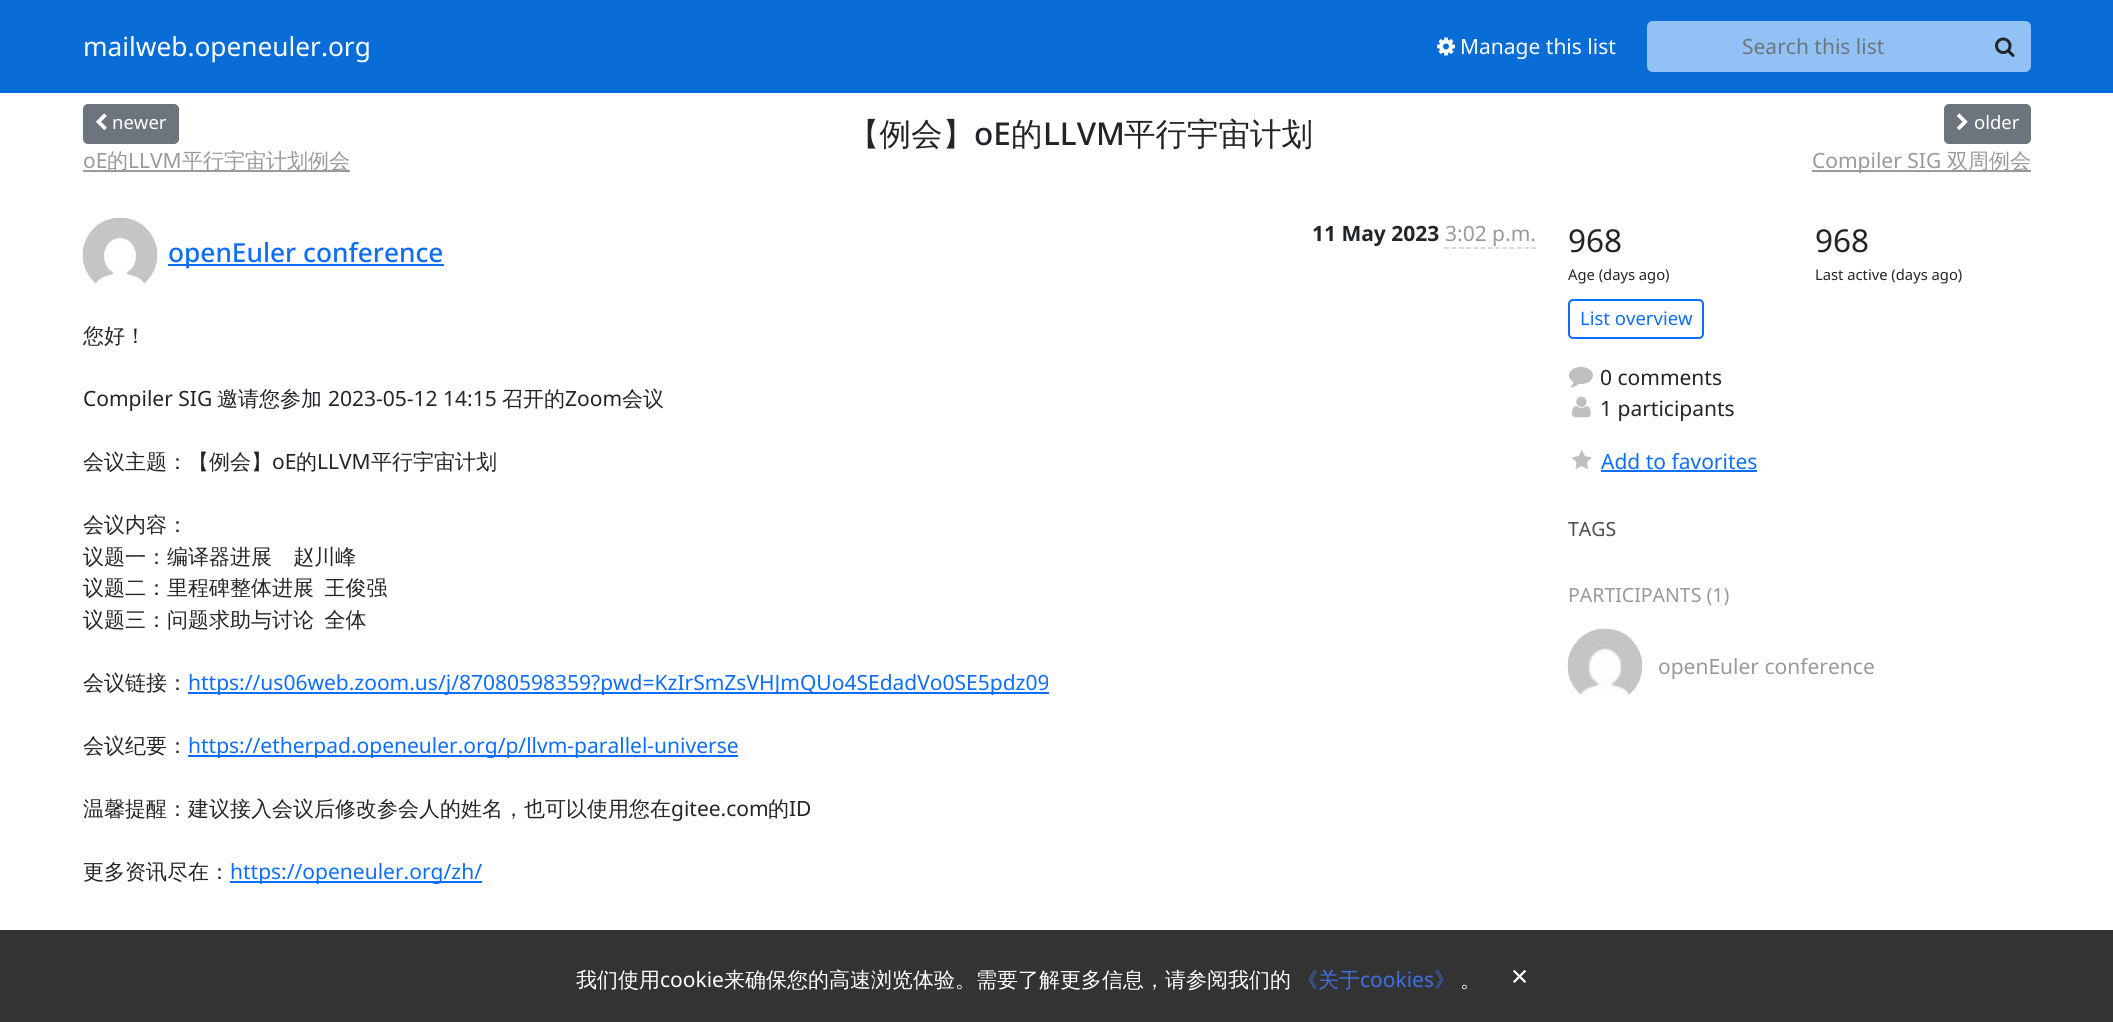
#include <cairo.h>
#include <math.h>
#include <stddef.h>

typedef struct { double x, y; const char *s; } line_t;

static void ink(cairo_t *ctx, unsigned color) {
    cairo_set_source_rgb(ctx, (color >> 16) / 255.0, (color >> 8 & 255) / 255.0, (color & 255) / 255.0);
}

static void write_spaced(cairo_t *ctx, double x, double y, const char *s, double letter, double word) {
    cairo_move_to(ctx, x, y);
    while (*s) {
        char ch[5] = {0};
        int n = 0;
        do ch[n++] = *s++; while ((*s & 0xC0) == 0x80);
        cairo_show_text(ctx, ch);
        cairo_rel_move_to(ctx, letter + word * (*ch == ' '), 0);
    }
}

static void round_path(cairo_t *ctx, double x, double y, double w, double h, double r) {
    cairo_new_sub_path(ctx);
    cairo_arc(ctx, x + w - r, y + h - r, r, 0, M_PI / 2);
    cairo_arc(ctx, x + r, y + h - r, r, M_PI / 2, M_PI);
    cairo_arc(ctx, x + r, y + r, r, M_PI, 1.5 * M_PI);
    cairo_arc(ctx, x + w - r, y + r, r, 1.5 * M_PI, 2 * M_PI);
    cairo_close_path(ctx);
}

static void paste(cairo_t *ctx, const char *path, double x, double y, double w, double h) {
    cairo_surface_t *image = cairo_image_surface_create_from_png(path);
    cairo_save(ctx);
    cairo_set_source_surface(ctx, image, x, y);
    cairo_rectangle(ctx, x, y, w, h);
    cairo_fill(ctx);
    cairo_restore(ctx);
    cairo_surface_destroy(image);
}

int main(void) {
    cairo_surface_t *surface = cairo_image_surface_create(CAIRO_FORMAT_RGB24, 2113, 1022);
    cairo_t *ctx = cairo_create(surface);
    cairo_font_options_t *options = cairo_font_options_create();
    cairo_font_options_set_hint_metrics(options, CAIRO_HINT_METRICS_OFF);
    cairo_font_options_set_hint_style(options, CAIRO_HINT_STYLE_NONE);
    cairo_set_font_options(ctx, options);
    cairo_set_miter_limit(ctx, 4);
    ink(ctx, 0xFFFFFF);
    cairo_paint(ctx);
    ink(ctx, 0x086DD7);
    cairo_rectangle(ctx, 0, 0, 2113, 93);
    cairo_fill(ctx);
    cairo_select_font_face(ctx, "Noto Sans", CAIRO_FONT_SLANT_NORMAL, CAIRO_FONT_WEIGHT_NORMAL);
    cairo_set_font_size(ctx, 26.25);
    ink(ctx, 0xFFFFFF);
    cairo_move_to(ctx, 83, 56);
    cairo_show_text(ctx, "mailweb.openeuler.org");
    paste(ctx, "media/1.png", 1437, 37, 18, 19);
    cairo_set_font_size(ctx, 21);
    cairo_move_to(ctx, 1460, 54);
    cairo_show_text(ctx, "Manage this list");
    ink(ctx, 0x92C2F5);
    cairo_new_path(ctx);
    cairo_move_to(ctx, 1653, 21);
    cairo_line_to(ctx, 1979, 21);
    cairo_line_to(ctx, 1979, 72);
    cairo_line_to(ctx, 1653, 72);
    cairo_curve_to(ctx, 1649.5, 72, 1647, 69.5, 1647, 66);
    cairo_line_to(ctx, 1647, 27);
    cairo_curve_to(ctx, 1647, 23.5, 1649.5, 21, 1653, 21);
    cairo_close_path(ctx);
    cairo_fill(ctx);
    ink(ctx, 0x6C757D);
    cairo_move_to(ctx, 1742, 54);
    cairo_show_text(ctx, "Search this list");
    ink(ctx, 0x92C2F5);
    cairo_new_path(ctx);
    cairo_move_to(ctx, 1977, 21);
    cairo_line_to(ctx, 2025, 21);
    cairo_curve_to(ctx, 2028.5, 21, 2031, 23.5, 2031, 27);
    cairo_line_to(ctx, 2031, 66);
    cairo_curve_to(ctx, 2031, 69.5, 2028.5, 72, 2025, 72);
    cairo_line_to(ctx, 1977, 72);
    cairo_close_path(ctx);
    cairo_fill(ctx);
    paste(ctx, "media/2.png", 1995, 37, 20, 20);
    ink(ctx, 0x6C757D);
    round_path(ctx, 84, 105, 94, 38, 4);
    cairo_fill_preserve(ctx);
    cairo_stroke(ctx);
    paste(ctx, "media/3.png", 96, 113, 11, 17);
    cairo_set_font_size(ctx, 18.5);
    ink(ctx, 0xFFFFFF);
    cairo_move_to(ctx, 112, 129);
    cairo_show_text(ctx, "newer");
    cairo_set_font_size(ctx, 21);
    ink(ctx, 0x999999);
    cairo_move_to(ctx, 83, 168);
    cairo_show_text(ctx, "oE");
    cairo_rectangle(ctx, 83, 170, 267, 2);
    cairo_fill(ctx);
    cairo_select_font_face(ctx, "WenQuanYi Zen Hei Medium", CAIRO_FONT_SLANT_NORMAL, CAIRO_FONT_WEIGHT_NORMAL);
    cairo_move_to(ctx, 107, 168);
    cairo_show_text(ctx, "的");
    cairo_select_font_face(ctx, "Noto Sans", CAIRO_FONT_SLANT_NORMAL, CAIRO_FONT_WEIGHT_NORMAL);
    cairo_move_to(ctx, 128, 168);
    cairo_show_text(ctx, "LLVM");
    cairo_select_font_face(ctx, "WenQuanYi Zen Hei Medium", CAIRO_FONT_SLANT_NORMAL, CAIRO_FONT_WEIGHT_NORMAL);
    cairo_move_to(ctx, 182, 168);
    cairo_show_text(ctx, "平行宇宙计划例会");
    cairo_set_font_size(ctx, 31.5);
    ink(ctx, 0x212529);
    cairo_move_to(ctx, 848, 145);
    cairo_show_text(ctx, "【例会】");
    cairo_select_font_face(ctx, "Noto Sans Medium", CAIRO_FONT_SLANT_NORMAL, CAIRO_FONT_WEIGHT_NORMAL);
    cairo_move_to(ctx, 974, 145);
    cairo_show_text(ctx, "oE");
    cairo_select_font_face(ctx, "WenQuanYi Zen Hei Medium", CAIRO_FONT_SLANT_NORMAL, CAIRO_FONT_WEIGHT_NORMAL);
    cairo_move_to(ctx, 1011, 145);
    cairo_show_text(ctx, "的");
    cairo_select_font_face(ctx, "Noto Sans Medium", CAIRO_FONT_SLANT_NORMAL, CAIRO_FONT_WEIGHT_NORMAL);
    cairo_move_to(ctx, 1043, 145);
    cairo_show_text(ctx, "LLVM");
    cairo_select_font_face(ctx, "WenQuanYi Zen Hei Medium", CAIRO_FONT_SLANT_NORMAL, CAIRO_FONT_WEIGHT_NORMAL);
    cairo_move_to(ctx, 1124, 145);
    cairo_show_text(ctx, "平行宇宙计划");
    ink(ctx, 0x6C757D);
    round_path(ctx, 1945, 105, 85, 38, 4);
    cairo_fill_preserve(ctx);
    cairo_stroke(ctx);
    paste(ctx, "media/4.png", 1957, 113, 11, 17);
    cairo_select_font_face(ctx, "Noto Sans", CAIRO_FONT_SLANT_NORMAL, CAIRO_FONT_WEIGHT_NORMAL);
    cairo_set_font_size(ctx, 18.5);
    ink(ctx, 0xFFFFFF);
    cairo_move_to(ctx, 1974, 129);
    cairo_show_text(ctx, "older");
    ink(ctx, 0x999999);
    cairo_rectangle(ctx, 1812, 170, 219, 2);
    cairo_fill(ctx);
    cairo_set_font_size(ctx, 21);
    cairo_move_to(ctx, 1812, 168);
    cairo_show_text(ctx, "Compiler SIG");
    cairo_select_font_face(ctx, "WenQuanYi Zen Hei Medium", CAIRO_FONT_SLANT_NORMAL, CAIRO_FONT_WEIGHT_NORMAL);
    cairo_move_to(ctx, 1947, 168);
    cairo_show_text(ctx, "双周例会");
    cairo_select_font_face(ctx, "Noto Sans", CAIRO_FONT_SLANT_NORMAL, CAIRO_FONT_WEIGHT_BOLD);
    ink(ctx, 0x212529);
    cairo_move_to(ctx, 1312, 241);
    cairo_show_text(ctx, "11 May 2023");
    cairo_select_font_face(ctx, "Noto Sans", CAIRO_FONT_SLANT_NORMAL, CAIRO_FONT_WEIGHT_NORMAL);
    ink(ctx, 0x999999);
    cairo_move_to(ctx, 1445, 241);
    cairo_show_text(ctx, "3:02 p.m.");
    cairo_new_path(ctx);
    cairo_move_to(ctx, 1444.5, 248);
    cairo_line_to(ctx, 1536, 248);
    ink(ctx, 0xCCCCCC);
    cairo_set_line_width(ctx, 1.5);
    cairo_set_dash(ctx, (double[]){4.5, 2.75}, 2, 0);
    cairo_stroke(ctx);
    paste(ctx, "media/5.png", 82, 217, 76, 67);
    ink(ctx, 0x0D6EFD);
    cairo_rectangle(ctx, 168, 264, 276, 2);
    cairo_fill(ctx);
    cairo_select_font_face(ctx, "Noto Sans Medium", CAIRO_FONT_SLANT_NORMAL, CAIRO_FONT_WEIGHT_NORMAL);
    cairo_set_font_size(ctx, 26.25);
    cairo_move_to(ctx, 168, 262);
    cairo_show_text(ctx, "openEuler conference");
    cairo_select_font_face(ctx, "WenQuanYi Zen Hei Medium", CAIRO_FONT_SLANT_NORMAL, CAIRO_FONT_WEIGHT_NORMAL);
    cairo_set_font_size(ctx, 21);
    ink(ctx, 0x212529);
    cairo_move_to(ctx, 83, 343);
    cairo_show_text(ctx, "您好！");
    cairo_select_font_face(ctx, "Noto Sans", CAIRO_FONT_SLANT_NORMAL, CAIRO_FONT_WEIGHT_NORMAL);
    cairo_move_to(ctx, 83, 406);
    cairo_show_text(ctx, "Compiler SIG");
    cairo_select_font_face(ctx, "WenQuanYi Zen Hei Medium", CAIRO_FONT_SLANT_NORMAL, CAIRO_FONT_WEIGHT_NORMAL);
    cairo_move_to(ctx, 217, 406);
    cairo_show_text(ctx, "邀请您参加");
    cairo_select_font_face(ctx, "Noto Sans", CAIRO_FONT_SLANT_NORMAL, CAIRO_FONT_WEIGHT_NORMAL);
    cairo_move_to(ctx, 328, 406);
    cairo_show_text(ctx, "2023-05-12 14:15");
    cairo_select_font_face(ctx, "WenQuanYi Zen Hei Medium", CAIRO_FONT_SLANT_NORMAL, CAIRO_FONT_WEIGHT_NORMAL);
    cairo_move_to(ctx, 502, 406);
    cairo_show_text(ctx, "召开的");
    cairo_select_font_face(ctx, "Noto Sans", CAIRO_FONT_SLANT_NORMAL, CAIRO_FONT_WEIGHT_NORMAL);
    cairo_move_to(ctx, 565, 406);
    cairo_show_text(ctx, "Zoom");
    cairo_select_font_face(ctx, "WenQuanYi Zen Hei Medium", CAIRO_FONT_SLANT_NORMAL, CAIRO_FONT_WEIGHT_NORMAL);
    cairo_move_to(ctx, 622, 406);
    cairo_show_text(ctx, "会议");
    cairo_move_to(ctx, 83, 469);
    cairo_show_text(ctx, "会议主题：【例会】");
    cairo_select_font_face(ctx, "Noto Sans", CAIRO_FONT_SLANT_NORMAL, CAIRO_FONT_WEIGHT_NORMAL);
    cairo_move_to(ctx, 272, 469);
    cairo_show_text(ctx, "oE");
    cairo_select_font_face(ctx, "WenQuanYi Zen Hei Medium", CAIRO_FONT_SLANT_NORMAL, CAIRO_FONT_WEIGHT_NORMAL);
    cairo_move_to(ctx, 296, 469);
    cairo_show_text(ctx, "的");
    cairo_select_font_face(ctx, "Noto Sans", CAIRO_FONT_SLANT_NORMAL, CAIRO_FONT_WEIGHT_NORMAL);
    cairo_move_to(ctx, 317, 469);
    cairo_show_text(ctx, "LLVM");
    cairo_select_font_face(ctx, "WenQuanYi Zen Hei Medium", CAIRO_FONT_SLANT_NORMAL, CAIRO_FONT_WEIGHT_NORMAL);
    cairo_move_to(ctx, 371, 469);
    cairo_show_text(ctx, "平行宇宙计划");
    cairo_move_to(ctx, 83, 532);
    cairo_show_text(ctx, "会议内容：");
    {
        static const line_t items[] = {
            {83, 564, "议题一：编译器进展    赵川峰"},
            {83, 595, "议题二：里程碑整体进展  王俊强"},
            {83, 627, "议题三：问题求助与讨论  全体"},
        };
        for (size_t i = 0; i < sizeof items / sizeof *items; i++) {
            write_spaced(ctx, items[i].x, items[i].y, items[i].s, 0, -1);
        }
    }
    cairo_move_to(ctx, 83, 690);
    cairo_show_text(ctx, "会议链接：");
    ink(ctx, 0x0D6EFD);
    cairo_rectangle(ctx, 188, 692, 861, 2);
    cairo_fill(ctx);
    cairo_select_font_face(ctx, "Noto Sans", CAIRO_FONT_SLANT_NORMAL, CAIRO_FONT_WEIGHT_NORMAL);
    cairo_move_to(ctx, 188, 690);
    cairo_show_text(ctx, "https://us06web.zoom.us/j/87080598359?pwd=KzIrSmZsVHJmQUo4SEdadVo0SE5pdz09");
    cairo_select_font_face(ctx, "WenQuanYi Zen Hei Medium", CAIRO_FONT_SLANT_NORMAL, CAIRO_FONT_WEIGHT_NORMAL);
    ink(ctx, 0x212529);
    cairo_move_to(ctx, 83, 753);
    cairo_show_text(ctx, "会议纪要：");
    ink(ctx, 0x0D6EFD);
    cairo_rectangle(ctx, 188, 755, 550, 2);
    cairo_fill(ctx);
    cairo_select_font_face(ctx, "Noto Sans", CAIRO_FONT_SLANT_NORMAL, CAIRO_FONT_WEIGHT_NORMAL);
    cairo_move_to(ctx, 188, 753);
    cairo_show_text(ctx, "https://etherpad.openeuler.org/p/llvm-parallel-universe");
    cairo_select_font_face(ctx, "WenQuanYi Zen Hei Medium", CAIRO_FONT_SLANT_NORMAL, CAIRO_FONT_WEIGHT_NORMAL);
    ink(ctx, 0x212529);
    cairo_move_to(ctx, 83, 816);
    cairo_show_text(ctx, "温馨提醒：建议接入会议后修改参会人的姓名，也可以使用您在");
    cairo_select_font_face(ctx, "Noto Sans", CAIRO_FONT_SLANT_NORMAL, CAIRO_FONT_WEIGHT_NORMAL);
    cairo_move_to(ctx, 671, 816);
    cairo_show_text(ctx, "gitee.com");
    cairo_select_font_face(ctx, "WenQuanYi Zen Hei Medium", CAIRO_FONT_SLANT_NORMAL, CAIRO_FONT_WEIGHT_NORMAL);
    cairo_move_to(ctx, 768, 816);
    cairo_show_text(ctx, "的");
    cairo_select_font_face(ctx, "Noto Sans", CAIRO_FONT_SLANT_NORMAL, CAIRO_FONT_WEIGHT_NORMAL);
    cairo_move_to(ctx, 789, 816);
    cairo_show_text(ctx, "ID");
    cairo_select_font_face(ctx, "WenQuanYi Zen Hei Medium", CAIRO_FONT_SLANT_NORMAL, CAIRO_FONT_WEIGHT_NORMAL);
    cairo_move_to(ctx, 83, 879);
    cairo_show_text(ctx, "更多资讯尽在：");
    ink(ctx, 0x0D6EFD);
    cairo_rectangle(ctx, 230, 881, 252, 2);
    cairo_fill(ctx);
    cairo_select_font_face(ctx, "Noto Sans", CAIRO_FONT_SLANT_NORMAL, CAIRO_FONT_WEIGHT_NORMAL);
    cairo_move_to(ctx, 230, 879);
    cairo_show_text(ctx, "https://openeuler.org/zh/");
    cairo_set_font_size(ctx, 31.5);
    ink(ctx, 0x212529);
    cairo_move_to(ctx, 1568, 252);
    cairo_show_text(ctx, "968");
    cairo_set_font_size(ctx, 14.75);
    cairo_move_to(ctx, 1568, 280);
    cairo_show_text(ctx, "Age (days ago)");
    cairo_set_font_size(ctx, 31.5);
    cairo_move_to(ctx, 1815, 252);
    cairo_show_text(ctx, "968");
    cairo_set_font_size(ctx, 14.75);
    cairo_move_to(ctx, 1815, 280);
    cairo_show_text(ctx, "Last active (days ago)");
    round_path(ctx, 1569, 300, 134, 38, 4);
    ink(ctx, 0x0D6EFD);
    cairo_set_line_width(ctx, 2);
    cairo_set_dash(ctx, NULL, 0, 0);
    cairo_stroke(ctx);
    cairo_set_font_size(ctx, 18.5);
    cairo_move_to(ctx, 1580, 325);
    cairo_show_text(ctx, "List overview");
    paste(ctx, "media/6.png", 1569, 366, 24, 22);
    cairo_set_font_size(ctx, 21);
    ink(ctx, 0x212529);
    cairo_move_to(ctx, 1600, 385);
    cairo_show_text(ctx, "0 comments");
    paste(ctx, "media/7.png", 1572, 396, 19, 22);
    cairo_move_to(ctx, 1600, 416);
    cairo_show_text(ctx, "1 participants");
    paste(ctx, "media/8.png", 1572, 450, 20, 19);
    ink(ctx, 0x0D6EFD);
    cairo_move_to(ctx, 1601, 469);
    cairo_show_text(ctx, "Add to favorites");
    cairo_rectangle(ctx, 1601, 470, 156, 2);
    cairo_fill(ctx);
    cairo_set_font_size(ctx, 19.5);
    ink(ctx, 0x4D4D4D);
    cairo_move_to(ctx, 1568, 536);
    cairo_show_text(ctx, "TAGS");
    ink(ctx, 0x999999);
    cairo_move_to(ctx, 1568, 602);
    cairo_show_text(ctx, "PARTICIPANTS (1)");
    paste(ctx, "media/9.png", 1567, 628, 76, 67);
    cairo_set_font_size(ctx, 21);
    cairo_move_to(ctx, 1658, 674);
    cairo_show_text(ctx, "openEuler conference");
    ink(ctx, 0x333333);
    cairo_rectangle(ctx, 0, 930, 2113, 92);
    cairo_fill(ctx);
    cairo_select_font_face(ctx, "WenQuanYi Zen Hei Medium", CAIRO_FONT_SLANT_NORMAL, CAIRO_FONT_WEIGHT_NORMAL);
    ink(ctx, 0xFFFFFF);
    cairo_move_to(ctx, 576, 987);
    cairo_show_text(ctx, "我们使用");
    cairo_select_font_face(ctx, "Noto Sans", CAIRO_FONT_SLANT_NORMAL, CAIRO_FONT_WEIGHT_NORMAL);
    cairo_move_to(ctx, 660, 987);
    cairo_show_text(ctx, "cookie");
    cairo_select_font_face(ctx, "WenQuanYi Zen Hei Medium", CAIRO_FONT_SLANT_NORMAL, CAIRO_FONT_WEIGHT_NORMAL);
    cairo_move_to(ctx, 724, 987);
    cairo_show_text(ctx, "来确保您的高速浏览体验。需要了解更多信息，请参阅我们的");
    ink(ctx, 0x406FE7);
    cairo_move_to(ctx, 1297, 987);
    cairo_show_text(ctx, "《关于");
    cairo_select_font_face(ctx, "Noto Sans", CAIRO_FONT_SLANT_NORMAL, CAIRO_FONT_WEIGHT_NORMAL);
    cairo_move_to(ctx, 1360, 987);
    cairo_show_text(ctx, "cookies");
    cairo_select_font_face(ctx, "WenQuanYi Zen Hei Medium", CAIRO_FONT_SLANT_NORMAL, CAIRO_FONT_WEIGHT_NORMAL);
    cairo_move_to(ctx, 1434, 987);
    cairo_show_text(ctx, "》");
    ink(ctx, 0xFFFFFF);
    cairo_move_to(ctx, 1460, 987);
    cairo_show_text(ctx, "。");
    cairo_select_font_face(ctx, "Noto Sans", CAIRO_FONT_SLANT_NORMAL, CAIRO_FONT_WEIGHT_NORMAL);
    cairo_set_font_size(ctx, 30);
    cairo_move_to(ctx, 1511, 987);
    cairo_show_text(ctx, "×");
    cairo_surface_write_to_png(surface, "image.png");
    cairo_font_options_destroy(options);
    cairo_destroy(ctx);
    cairo_surface_destroy(surface);
    return 0;
}
